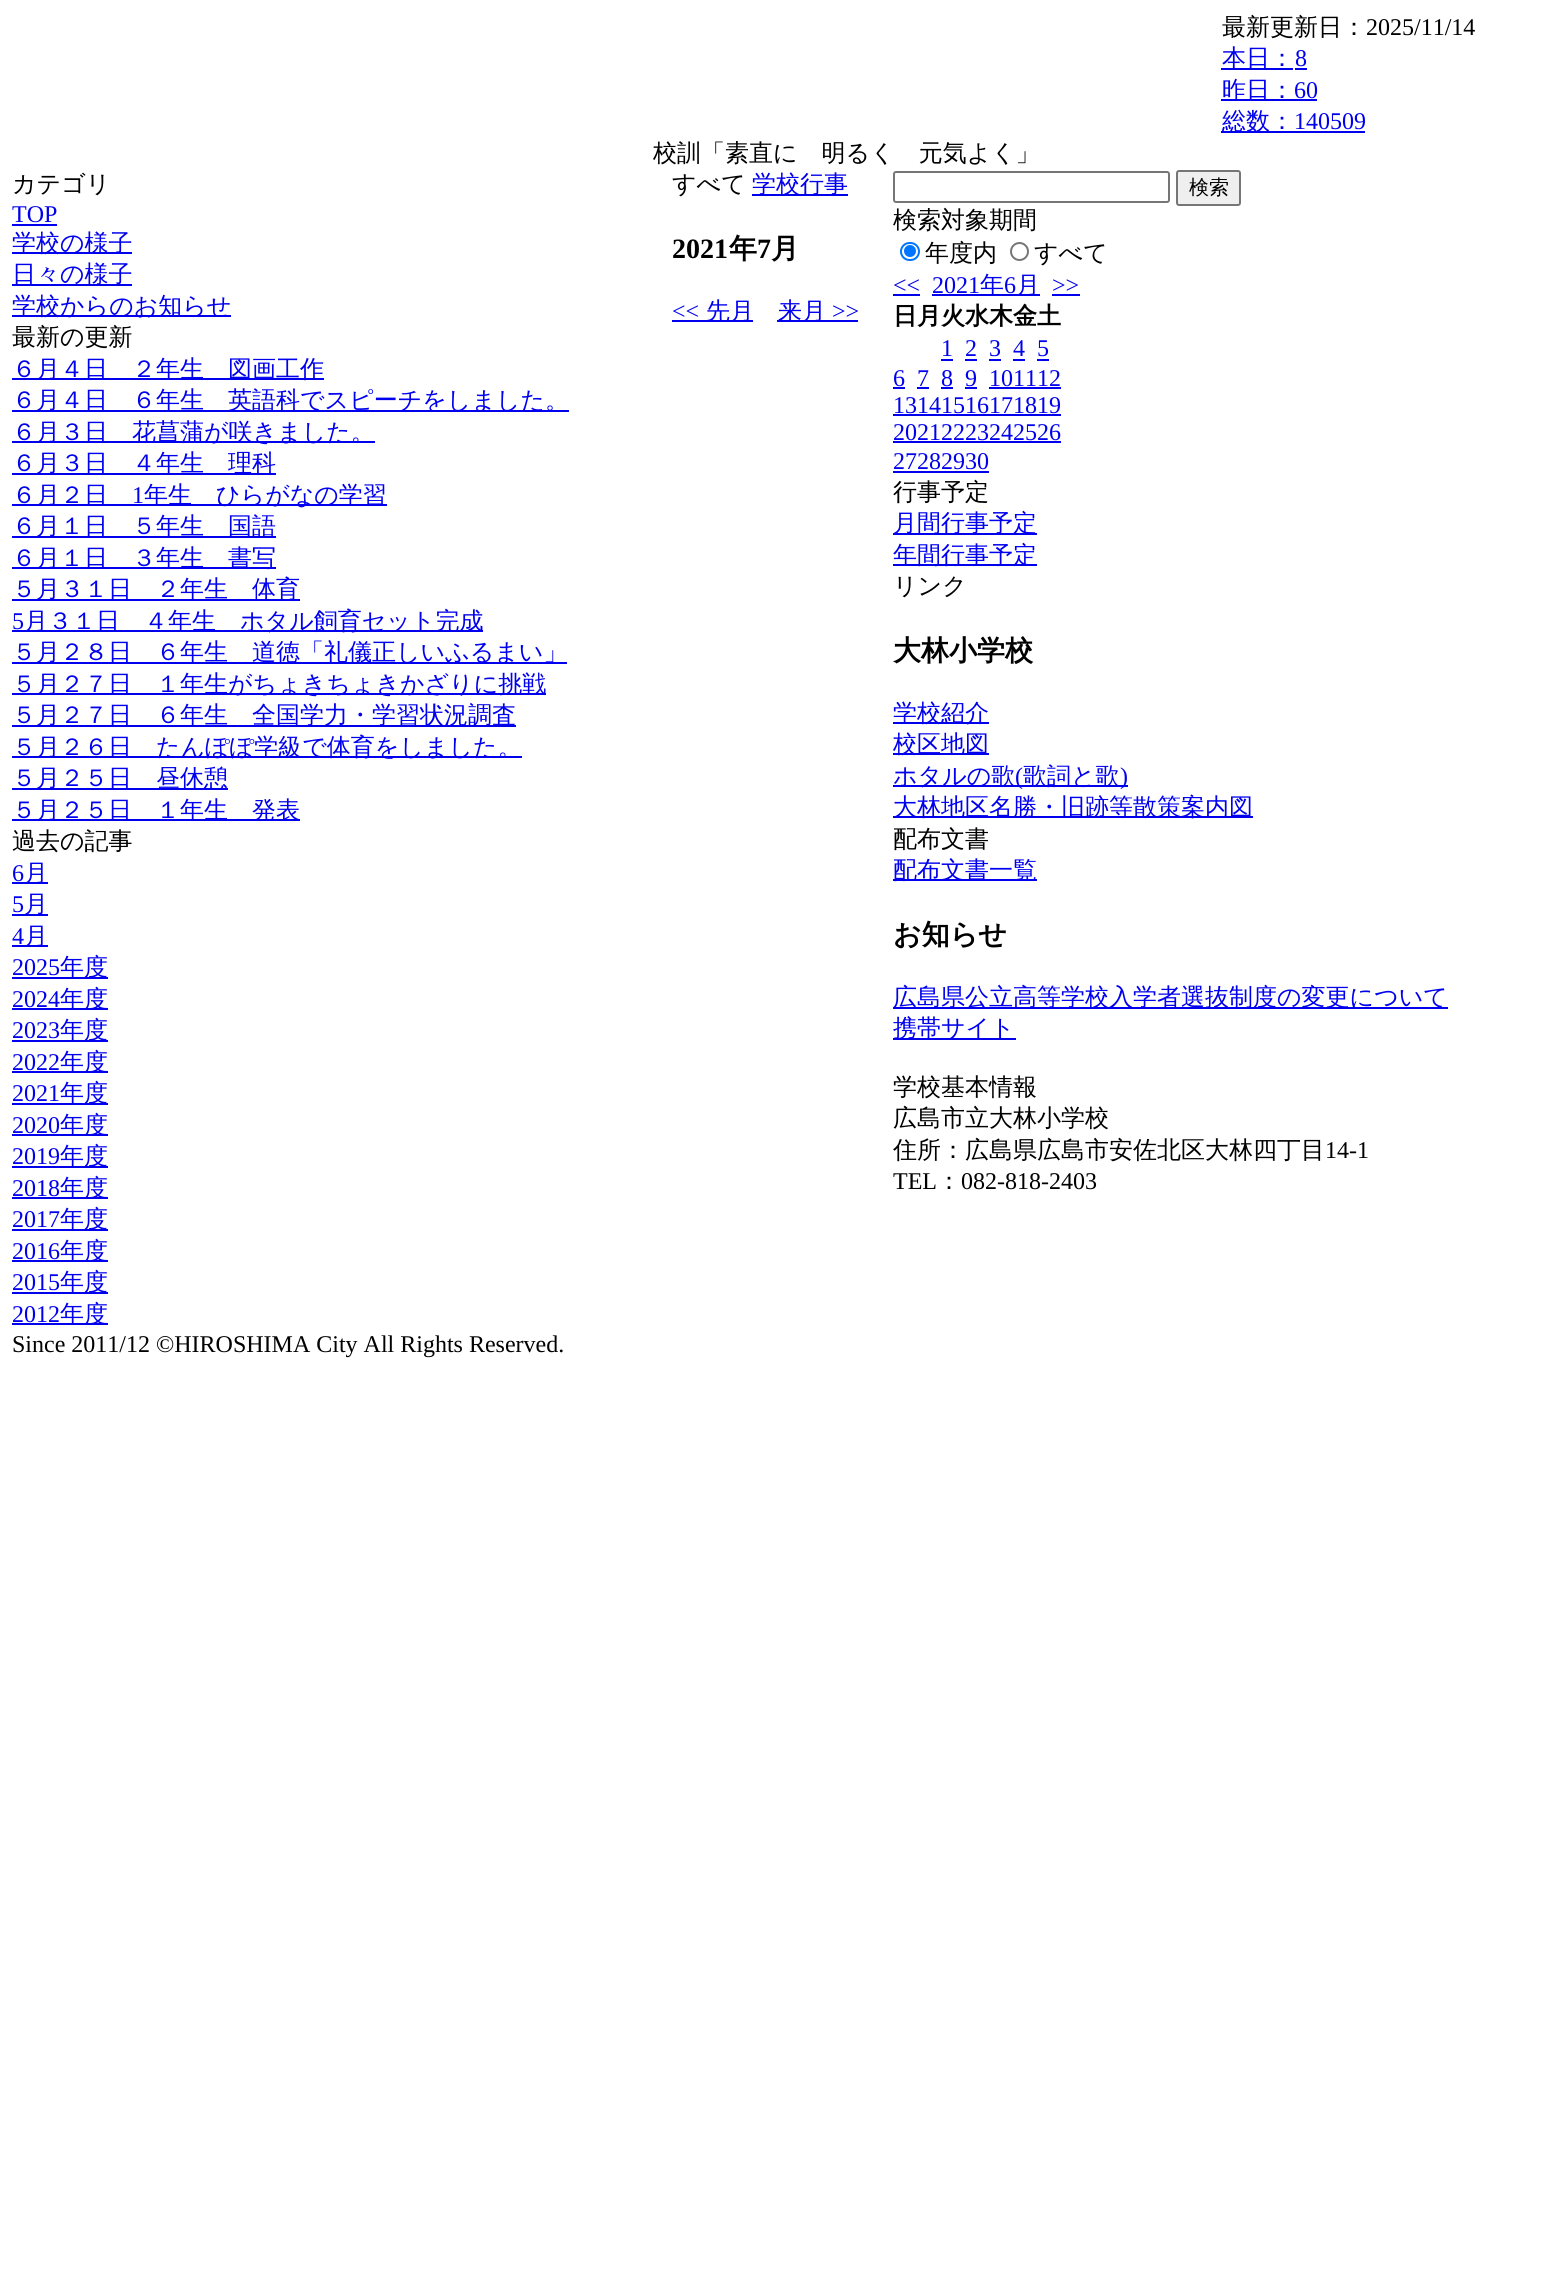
#include <cairo.h>
#include <math.h>
#include <stddef.h>

typedef struct { double x, y; const char *s; } line_t;

static void ink(cairo_t *ctx, unsigned color) {
    cairo_set_source_rgb(ctx, (color >> 16) / 255.0, (color >> 8 & 255) / 255.0, (color & 255) / 255.0);
}

static void round_path(cairo_t *ctx, double x, double y, double w, double h, double r) {
    cairo_new_sub_path(ctx);
    cairo_arc(ctx, x + w - r, y + h - r, r, 0, M_PI / 2);
    cairo_arc(ctx, x + r, y + h - r, r, M_PI / 2, M_PI);
    cairo_arc(ctx, x + r, y + r, r, M_PI, 1.5 * M_PI);
    cairo_arc(ctx, x + w - r, y + r, r, 1.5 * M_PI, 2 * M_PI);
    cairo_close_path(ctx);
}

int main(void) {
    cairo_surface_t *surface = cairo_image_surface_create(CAIRO_FORMAT_RGB24, 1563, 2289);
    cairo_t *ctx = cairo_create(surface);
    cairo_font_options_t *options = cairo_font_options_create();
    cairo_font_options_set_hint_metrics(options, CAIRO_HINT_METRICS_OFF);
    cairo_font_options_set_hint_style(options, CAIRO_HINT_STYLE_NONE);
    cairo_set_font_options(ctx, options);
    cairo_set_miter_limit(ctx, 4);
    ink(ctx, 0xFFFFFF);
    cairo_paint(ctx);
    cairo_select_font_face(ctx, "WenQuanYi Zen Hei Medium", CAIRO_FONT_SLANT_NORMAL, CAIRO_FONT_WEIGHT_NORMAL);
    cairo_set_font_size(ctx, 24);
    ink(ctx, 0x000000);
    cairo_move_to(ctx, 1222, 35);
    cairo_show_text(ctx, "最新更新日：");
    cairo_select_font_face(ctx, "Liberation Serif", CAIRO_FONT_SLANT_NORMAL, CAIRO_FONT_WEIGHT_NORMAL);
    cairo_move_to(ctx, 1366, 35);
    cairo_show_text(ctx, "2025/11/14");
    ink(ctx, 0x0000EE);
    cairo_rectangle(ctx, 1221, 68, 72, 2);
    cairo_fill(ctx);
    cairo_select_font_face(ctx, "WenQuanYi Zen Hei Medium", CAIRO_FONT_SLANT_NORMAL, CAIRO_FONT_WEIGHT_NORMAL);
    cairo_move_to(ctx, 1222, 66);
    cairo_show_text(ctx, "本日：");
    cairo_select_font_face(ctx, "Liberation Serif", CAIRO_FONT_SLANT_NORMAL, CAIRO_FONT_WEIGHT_NORMAL);
    cairo_move_to(ctx, 1295, 66);
    cairo_show_text(ctx, "8");
    cairo_rectangle(ctx, 1295, 68, 12, 2);
    cairo_fill(ctx);
    cairo_rectangle(ctx, 1221, 99, 96, 2);
    cairo_fill(ctx);
    cairo_select_font_face(ctx, "WenQuanYi Zen Hei Medium", CAIRO_FONT_SLANT_NORMAL, CAIRO_FONT_WEIGHT_NORMAL);
    cairo_move_to(ctx, 1222, 98);
    cairo_show_text(ctx, "昨日：");
    cairo_select_font_face(ctx, "Liberation Serif", CAIRO_FONT_SLANT_NORMAL, CAIRO_FONT_WEIGHT_NORMAL);
    cairo_move_to(ctx, 1294, 98);
    cairo_show_text(ctx, "60");
    cairo_rectangle(ctx, 1221, 131, 144, 2);
    cairo_fill(ctx);
    cairo_select_font_face(ctx, "WenQuanYi Zen Hei Medium", CAIRO_FONT_SLANT_NORMAL, CAIRO_FONT_WEIGHT_NORMAL);
    cairo_move_to(ctx, 1222, 129);
    cairo_show_text(ctx, "総数：");
    cairo_select_font_face(ctx, "Liberation Serif", CAIRO_FONT_SLANT_NORMAL, CAIRO_FONT_WEIGHT_NORMAL);
    cairo_move_to(ctx, 1294, 129);
    cairo_show_text(ctx, "140509");
    cairo_select_font_face(ctx, "WenQuanYi Zen Hei Medium", CAIRO_FONT_SLANT_NORMAL, CAIRO_FONT_WEIGHT_NORMAL);
    ink(ctx, 0x000000);
    cairo_move_to(ctx, 653, 161);
    cairo_show_text(ctx, "校訓「素直に　明るく　元気よく」");
    cairo_move_to(ctx, 12, 192);
    cairo_show_text(ctx, "カテゴリ");
    cairo_select_font_face(ctx, "Liberation Serif", CAIRO_FONT_SLANT_NORMAL, CAIRO_FONT_WEIGHT_NORMAL);
    ink(ctx, 0x0000EE);
    cairo_move_to(ctx, 12, 222);
    cairo_show_text(ctx, "TOP");
    cairo_rectangle(ctx, 12, 224, 45, 2);
    cairo_fill(ctx);
    cairo_rectangle(ctx, 12, 252, 120, 2);
    cairo_fill(ctx);
    cairo_select_font_face(ctx, "WenQuanYi Zen Hei Medium", CAIRO_FONT_SLANT_NORMAL, CAIRO_FONT_WEIGHT_NORMAL);
    cairo_move_to(ctx, 12, 251);
    cairo_show_text(ctx, "学校の様子");
    cairo_rectangle(ctx, 12, 284, 120, 2);
    cairo_fill(ctx);
    cairo_move_to(ctx, 12, 282);
    cairo_show_text(ctx, "日々の様子");
    cairo_rectangle(ctx, 12, 315, 219, 2);
    cairo_fill(ctx);
    cairo_move_to(ctx, 12, 314);
    cairo_show_text(ctx, "学校からのお知らせ");
    ink(ctx, 0x000000);
    cairo_move_to(ctx, 12, 345);
    cairo_show_text(ctx, "最新の更新");
    ink(ctx, 0x0000EE);
    cairo_rectangle(ctx, 12, 378, 312, 2);
    cairo_fill(ctx);
    cairo_move_to(ctx, 12, 377);
    cairo_show_text(ctx, "６月４日　２年生　図画工作");
    cairo_rectangle(ctx, 12, 410, 557, 2);
    cairo_fill(ctx);
    cairo_move_to(ctx, 12, 408);
    cairo_show_text(ctx, "６月４日　６年生　英語科でスピーチをしました。");
    cairo_rectangle(ctx, 12, 441, 363, 2);
    cairo_fill(ctx);
    cairo_move_to(ctx, 12, 440);
    cairo_show_text(ctx, "６月３日　花菖蒲が咲きました。");
    cairo_rectangle(ctx, 12, 473, 264, 2);
    cairo_fill(ctx);
    cairo_move_to(ctx, 12, 471);
    cairo_show_text(ctx, "６月３日　４年生　理科");
    cairo_rectangle(ctx, 12, 504, 375, 2);
    cairo_fill(ctx);
    cairo_move_to(ctx, 12, 503);
    cairo_show_text(ctx, "６月２日");
    cairo_select_font_face(ctx, "Liberation Serif", CAIRO_FONT_SLANT_NORMAL, CAIRO_FONT_WEIGHT_NORMAL);
    cairo_move_to(ctx, 132, 503);
    cairo_show_text(ctx, "1");
    cairo_select_font_face(ctx, "WenQuanYi Zen Hei Medium", CAIRO_FONT_SLANT_NORMAL, CAIRO_FONT_WEIGHT_NORMAL);
    cairo_move_to(ctx, 144, 503);
    cairo_show_text(ctx, "年生　ひらがなの学習");
    cairo_rectangle(ctx, 12, 536, 264, 2);
    cairo_fill(ctx);
    cairo_move_to(ctx, 12, 534);
    cairo_show_text(ctx, "６月１日　５年生　国語");
    cairo_rectangle(ctx, 12, 567, 264, 2);
    cairo_fill(ctx);
    cairo_move_to(ctx, 12, 566);
    cairo_show_text(ctx, "６月１日　３年生　書写");
    cairo_rectangle(ctx, 12, 599, 288, 2);
    cairo_fill(ctx);
    cairo_move_to(ctx, 12, 597);
    cairo_show_text(ctx, "５月３１日　２年生　体育");
    cairo_select_font_face(ctx, "Liberation Serif", CAIRO_FONT_SLANT_NORMAL, CAIRO_FONT_WEIGHT_NORMAL);
    cairo_move_to(ctx, 12, 629);
    cairo_show_text(ctx, "5");
    cairo_rectangle(ctx, 12, 630, 471, 2);
    cairo_fill(ctx);
    cairo_select_font_face(ctx, "WenQuanYi Zen Hei Medium", CAIRO_FONT_SLANT_NORMAL, CAIRO_FONT_WEIGHT_NORMAL);
    cairo_move_to(ctx, 24, 629);
    cairo_show_text(ctx, "月３１日　４年生　ホタル飼育セット完成");
    cairo_rectangle(ctx, 12, 662, 555, 2);
    cairo_fill(ctx);
    cairo_move_to(ctx, 12, 660);
    cairo_show_text(ctx, "５月２８日　６年生　道徳「礼儀正しいふるまい」");
    cairo_rectangle(ctx, 12, 693, 534, 2);
    cairo_fill(ctx);
    cairo_move_to(ctx, 12, 692);
    cairo_show_text(ctx, "５月２７日　１年生がちょきちょきかざりに挑戦");
    cairo_rectangle(ctx, 12, 725, 504, 2);
    cairo_fill(ctx);
    cairo_move_to(ctx, 12, 723);
    cairo_show_text(ctx, "５月２７日　６年生　全国学力・学習状況調査");
    cairo_rectangle(ctx, 12, 756, 510, 2);
    cairo_fill(ctx);
    cairo_move_to(ctx, 12, 755);
    cairo_show_text(ctx, "５月２６日　たんぽぽ学級で体育をしました。");
    cairo_rectangle(ctx, 12, 788, 216, 2);
    cairo_fill(ctx);
    cairo_move_to(ctx, 12, 786);
    cairo_show_text(ctx, "５月２５日　昼休憩");
    cairo_rectangle(ctx, 12, 819, 288, 2);
    cairo_fill(ctx);
    cairo_move_to(ctx, 12, 818);
    cairo_show_text(ctx, "５月２５日　１年生　発表");
    ink(ctx, 0x000000);
    cairo_move_to(ctx, 12, 849);
    cairo_show_text(ctx, "過去の記事");
    cairo_select_font_face(ctx, "Liberation Serif", CAIRO_FONT_SLANT_NORMAL, CAIRO_FONT_WEIGHT_NORMAL);
    ink(ctx, 0x0000EE);
    cairo_move_to(ctx, 12, 881);
    cairo_show_text(ctx, "6");
    cairo_rectangle(ctx, 12, 882, 36, 2);
    cairo_fill(ctx);
    cairo_select_font_face(ctx, "WenQuanYi Zen Hei Medium", CAIRO_FONT_SLANT_NORMAL, CAIRO_FONT_WEIGHT_NORMAL);
    cairo_move_to(ctx, 24, 881);
    cairo_show_text(ctx, "月");
    cairo_select_font_face(ctx, "Liberation Serif", CAIRO_FONT_SLANT_NORMAL, CAIRO_FONT_WEIGHT_NORMAL);
    cairo_move_to(ctx, 12, 912);
    cairo_show_text(ctx, "5");
    cairo_rectangle(ctx, 12, 914, 36, 2);
    cairo_fill(ctx);
    cairo_select_font_face(ctx, "WenQuanYi Zen Hei Medium", CAIRO_FONT_SLANT_NORMAL, CAIRO_FONT_WEIGHT_NORMAL);
    cairo_move_to(ctx, 24, 912);
    cairo_show_text(ctx, "月");
    cairo_select_font_face(ctx, "Liberation Serif", CAIRO_FONT_SLANT_NORMAL, CAIRO_FONT_WEIGHT_NORMAL);
    cairo_move_to(ctx, 12, 944);
    cairo_show_text(ctx, "4");
    cairo_rectangle(ctx, 12, 945, 36, 2);
    cairo_fill(ctx);
    cairo_select_font_face(ctx, "WenQuanYi Zen Hei Medium", CAIRO_FONT_SLANT_NORMAL, CAIRO_FONT_WEIGHT_NORMAL);
    cairo_move_to(ctx, 24, 944);
    cairo_show_text(ctx, "月");
    cairo_select_font_face(ctx, "Liberation Serif", CAIRO_FONT_SLANT_NORMAL, CAIRO_FONT_WEIGHT_NORMAL);
    cairo_move_to(ctx, 12, 975);
    cairo_show_text(ctx, "2025");
    cairo_rectangle(ctx, 12, 977, 96, 2);
    cairo_fill(ctx);
    cairo_select_font_face(ctx, "WenQuanYi Zen Hei Medium", CAIRO_FONT_SLANT_NORMAL, CAIRO_FONT_WEIGHT_NORMAL);
    cairo_move_to(ctx, 60, 975);
    cairo_show_text(ctx, "年度");
    cairo_select_font_face(ctx, "Liberation Serif", CAIRO_FONT_SLANT_NORMAL, CAIRO_FONT_WEIGHT_NORMAL);
    cairo_move_to(ctx, 12, 1007);
    cairo_show_text(ctx, "2024");
    cairo_rectangle(ctx, 12, 1008, 96, 2);
    cairo_fill(ctx);
    cairo_select_font_face(ctx, "WenQuanYi Zen Hei Medium", CAIRO_FONT_SLANT_NORMAL, CAIRO_FONT_WEIGHT_NORMAL);
    cairo_move_to(ctx, 60, 1007);
    cairo_show_text(ctx, "年度");
    cairo_select_font_face(ctx, "Liberation Serif", CAIRO_FONT_SLANT_NORMAL, CAIRO_FONT_WEIGHT_NORMAL);
    cairo_move_to(ctx, 12, 1038);
    cairo_show_text(ctx, "2023");
    cairo_rectangle(ctx, 12, 1040, 96, 2);
    cairo_fill(ctx);
    cairo_select_font_face(ctx, "WenQuanYi Zen Hei Medium", CAIRO_FONT_SLANT_NORMAL, CAIRO_FONT_WEIGHT_NORMAL);
    cairo_move_to(ctx, 60, 1038);
    cairo_show_text(ctx, "年度");
    cairo_select_font_face(ctx, "Liberation Serif", CAIRO_FONT_SLANT_NORMAL, CAIRO_FONT_WEIGHT_NORMAL);
    cairo_move_to(ctx, 12, 1070);
    cairo_show_text(ctx, "2022");
    cairo_rectangle(ctx, 12, 1071, 96, 2);
    cairo_fill(ctx);
    cairo_select_font_face(ctx, "WenQuanYi Zen Hei Medium", CAIRO_FONT_SLANT_NORMAL, CAIRO_FONT_WEIGHT_NORMAL);
    cairo_move_to(ctx, 60, 1070);
    cairo_show_text(ctx, "年度");
    cairo_select_font_face(ctx, "Liberation Serif", CAIRO_FONT_SLANT_NORMAL, CAIRO_FONT_WEIGHT_NORMAL);
    cairo_move_to(ctx, 12, 1101);
    cairo_show_text(ctx, "2021");
    cairo_rectangle(ctx, 12, 1103, 96, 2);
    cairo_fill(ctx);
    cairo_select_font_face(ctx, "WenQuanYi Zen Hei Medium", CAIRO_FONT_SLANT_NORMAL, CAIRO_FONT_WEIGHT_NORMAL);
    cairo_move_to(ctx, 60, 1101);
    cairo_show_text(ctx, "年度");
    cairo_select_font_face(ctx, "Liberation Serif", CAIRO_FONT_SLANT_NORMAL, CAIRO_FONT_WEIGHT_NORMAL);
    cairo_move_to(ctx, 12, 1133);
    cairo_show_text(ctx, "2020");
    cairo_rectangle(ctx, 12, 1134, 96, 2);
    cairo_fill(ctx);
    cairo_select_font_face(ctx, "WenQuanYi Zen Hei Medium", CAIRO_FONT_SLANT_NORMAL, CAIRO_FONT_WEIGHT_NORMAL);
    cairo_move_to(ctx, 60, 1133);
    cairo_show_text(ctx, "年度");
    cairo_select_font_face(ctx, "Liberation Serif", CAIRO_FONT_SLANT_NORMAL, CAIRO_FONT_WEIGHT_NORMAL);
    cairo_move_to(ctx, 12, 1164);
    cairo_show_text(ctx, "2019");
    cairo_rectangle(ctx, 12, 1166, 96, 2);
    cairo_fill(ctx);
    cairo_select_font_face(ctx, "WenQuanYi Zen Hei Medium", CAIRO_FONT_SLANT_NORMAL, CAIRO_FONT_WEIGHT_NORMAL);
    cairo_move_to(ctx, 60, 1164);
    cairo_show_text(ctx, "年度");
    cairo_select_font_face(ctx, "Liberation Serif", CAIRO_FONT_SLANT_NORMAL, CAIRO_FONT_WEIGHT_NORMAL);
    cairo_move_to(ctx, 12, 1196);
    cairo_show_text(ctx, "2018");
    cairo_rectangle(ctx, 12, 1197, 96, 2);
    cairo_fill(ctx);
    cairo_select_font_face(ctx, "WenQuanYi Zen Hei Medium", CAIRO_FONT_SLANT_NORMAL, CAIRO_FONT_WEIGHT_NORMAL);
    cairo_move_to(ctx, 60, 1196);
    cairo_show_text(ctx, "年度");
    cairo_select_font_face(ctx, "Liberation Serif", CAIRO_FONT_SLANT_NORMAL, CAIRO_FONT_WEIGHT_NORMAL);
    cairo_move_to(ctx, 12, 1227);
    cairo_show_text(ctx, "2017");
    cairo_rectangle(ctx, 12, 1229, 96, 2);
    cairo_fill(ctx);
    cairo_select_font_face(ctx, "WenQuanYi Zen Hei Medium", CAIRO_FONT_SLANT_NORMAL, CAIRO_FONT_WEIGHT_NORMAL);
    cairo_move_to(ctx, 60, 1227);
    cairo_show_text(ctx, "年度");
    cairo_select_font_face(ctx, "Liberation Serif", CAIRO_FONT_SLANT_NORMAL, CAIRO_FONT_WEIGHT_NORMAL);
    cairo_move_to(ctx, 12, 1259);
    cairo_show_text(ctx, "2016");
    cairo_rectangle(ctx, 12, 1260, 96, 2);
    cairo_fill(ctx);
    cairo_select_font_face(ctx, "WenQuanYi Zen Hei Medium", CAIRO_FONT_SLANT_NORMAL, CAIRO_FONT_WEIGHT_NORMAL);
    cairo_move_to(ctx, 60, 1259);
    cairo_show_text(ctx, "年度");
    cairo_select_font_face(ctx, "Liberation Serif", CAIRO_FONT_SLANT_NORMAL, CAIRO_FONT_WEIGHT_NORMAL);
    cairo_move_to(ctx, 12, 1290);
    cairo_show_text(ctx, "2015");
    cairo_rectangle(ctx, 12, 1292, 96, 2);
    cairo_fill(ctx);
    cairo_select_font_face(ctx, "WenQuanYi Zen Hei Medium", CAIRO_FONT_SLANT_NORMAL, CAIRO_FONT_WEIGHT_NORMAL);
    cairo_move_to(ctx, 60, 1290);
    cairo_show_text(ctx, "年度");
    cairo_select_font_face(ctx, "Liberation Serif", CAIRO_FONT_SLANT_NORMAL, CAIRO_FONT_WEIGHT_NORMAL);
    cairo_move_to(ctx, 12, 1322);
    cairo_show_text(ctx, "2012");
    cairo_rectangle(ctx, 12, 1323, 96, 2);
    cairo_fill(ctx);
    cairo_select_font_face(ctx, "WenQuanYi Zen Hei Medium", CAIRO_FONT_SLANT_NORMAL, CAIRO_FONT_WEIGHT_NORMAL);
    cairo_move_to(ctx, 60, 1322);
    cairo_show_text(ctx, "年度");
    ink(ctx, 0x000000);
    cairo_move_to(ctx, 672, 192);
    cairo_show_text(ctx, "すべて");
    ink(ctx, 0x0000EE);
    cairo_rectangle(ctx, 752, 194, 96, 2);
    cairo_fill(ctx);
    cairo_move_to(ctx, 752, 192);
    cairo_show_text(ctx, "学校行事");
    cairo_select_font_face(ctx, "Liberation Serif", CAIRO_FONT_SLANT_NORMAL, CAIRO_FONT_WEIGHT_BOLD);
    cairo_set_font_size(ctx, 28);
    ink(ctx, 0x000000);
    cairo_move_to(ctx, 672, 258);
    cairo_show_text(ctx, "2021");
    cairo_select_font_face(ctx, "WenQuanYi Zen Hei", CAIRO_FONT_SLANT_NORMAL, CAIRO_FONT_WEIGHT_BOLD);
    cairo_move_to(ctx, 729, 258);
    cairo_show_text(ctx, "年");
    cairo_select_font_face(ctx, "Liberation Serif", CAIRO_FONT_SLANT_NORMAL, CAIRO_FONT_WEIGHT_BOLD);
    cairo_move_to(ctx, 757, 258);
    cairo_show_text(ctx, "7");
    cairo_select_font_face(ctx, "WenQuanYi Zen Hei", CAIRO_FONT_SLANT_NORMAL, CAIRO_FONT_WEIGHT_BOLD);
    cairo_move_to(ctx, 771, 258);
    cairo_show_text(ctx, "月");
    cairo_select_font_face(ctx, "Liberation Serif", CAIRO_FONT_SLANT_NORMAL, CAIRO_FONT_WEIGHT_NORMAL);
    cairo_set_font_size(ctx, 24);
    ink(ctx, 0x0000EE);
    cairo_move_to(ctx, 672, 319);
    cairo_show_text(ctx, "<<");
    cairo_rectangle(ctx, 672, 320, 81, 2);
    cairo_fill(ctx);
    cairo_select_font_face(ctx, "WenQuanYi Zen Hei Medium", CAIRO_FONT_SLANT_NORMAL, CAIRO_FONT_WEIGHT_NORMAL);
    cairo_move_to(ctx, 706, 319);
    cairo_show_text(ctx, "先月");
    cairo_rectangle(ctx, 777, 320, 81, 2);
    cairo_fill(ctx);
    cairo_move_to(ctx, 778, 319);
    cairo_show_text(ctx, "来月");
    cairo_select_font_face(ctx, "Liberation Serif", CAIRO_FONT_SLANT_NORMAL, CAIRO_FONT_WEIGHT_NORMAL);
    cairo_move_to(ctx, 832, 319);
    cairo_show_text(ctx, ">>");
    round_path(ctx, 894, 172, 275, 30, 2);
    ink(ctx, 0x767676);
    cairo_stroke(ctx);
    ink(ctx, 0xEFEFEF);
    round_path(ctx, 1177, 171, 63, 34, 2);
    cairo_fill_preserve(ctx);
    ink(ctx, 0x767676);
    cairo_stroke(ctx);
    cairo_select_font_face(ctx, "WenQuanYi Zen Hei Medium", CAIRO_FONT_SLANT_NORMAL, CAIRO_FONT_WEIGHT_NORMAL);
    cairo_set_font_size(ctx, 20);
    ink(ctx, 0x000000);
    cairo_move_to(ctx, 1189, 194);
    cairo_show_text(ctx, "検索");
    cairo_set_font_size(ctx, 24);
    cairo_move_to(ctx, 893, 228);
    cairo_show_text(ctx, "検索対象期間");
    round_path(ctx, 901, 243, 18, 17, 8.5);
    ink(ctx, 0x0075FF);
    cairo_stroke(ctx);
    cairo_arc(ctx, 910, 251, 6, 0, 2 * M_PI);
    cairo_fill(ctx);
    ink(ctx, 0x000000);
    cairo_move_to(ctx, 925, 261);
    cairo_show_text(ctx, "年度内");
    cairo_new_path(ctx);
    cairo_arc(ctx, 1019.5, 251.5, 8.5, 0, 2 * M_PI);
    ink(ctx, 0x767676);
    cairo_stroke(ctx);
    ink(ctx, 0x000000);
    cairo_move_to(ctx, 1034, 261);
    cairo_show_text(ctx, "すべて");
    cairo_select_font_face(ctx, "Liberation Serif", CAIRO_FONT_SLANT_NORMAL, CAIRO_FONT_WEIGHT_NORMAL);
    ink(ctx, 0x0000EE);
    cairo_move_to(ctx, 893, 293);
    cairo_show_text(ctx, "<<");
    cairo_rectangle(ctx, 893, 294, 27, 2);
    cairo_fill(ctx);
    cairo_move_to(ctx, 932, 293);
    cairo_show_text(ctx, "2021");
    cairo_rectangle(ctx, 932, 294, 108, 2);
    cairo_fill(ctx);
    cairo_select_font_face(ctx, "WenQuanYi Zen Hei Medium", CAIRO_FONT_SLANT_NORMAL, CAIRO_FONT_WEIGHT_NORMAL);
    cairo_move_to(ctx, 980, 293);
    cairo_show_text(ctx, "年");
    cairo_select_font_face(ctx, "Liberation Serif", CAIRO_FONT_SLANT_NORMAL, CAIRO_FONT_WEIGHT_NORMAL);
    cairo_move_to(ctx, 1004, 293);
    cairo_show_text(ctx, "6");
    cairo_select_font_face(ctx, "WenQuanYi Zen Hei Medium", CAIRO_FONT_SLANT_NORMAL, CAIRO_FONT_WEIGHT_NORMAL);
    cairo_move_to(ctx, 1016, 293);
    cairo_show_text(ctx, "月");
    cairo_select_font_face(ctx, "Liberation Serif", CAIRO_FONT_SLANT_NORMAL, CAIRO_FONT_WEIGHT_NORMAL);
    cairo_move_to(ctx, 1052, 293);
    cairo_show_text(ctx, ">>");
    cairo_rectangle(ctx, 1052, 294, 28, 2);
    cairo_fill(ctx);
    cairo_select_font_face(ctx, "WenQuanYi Zen Hei", CAIRO_FONT_SLANT_NORMAL, CAIRO_FONT_WEIGHT_BOLD);
    ink(ctx, 0x000000);
    cairo_move_to(ctx, 893, 324);
    cairo_show_text(ctx, "日月火水木金土");
    cairo_select_font_face(ctx, "Liberation Serif", CAIRO_FONT_SLANT_NORMAL, CAIRO_FONT_WEIGHT_NORMAL);
    ink(ctx, 0x0000EE);
    cairo_move_to(ctx, 941, 356);
    cairo_show_text(ctx, "1");
    cairo_rectangle(ctx, 941, 359, 12, 2);
    cairo_fill(ctx);
    cairo_move_to(ctx, 965, 356);
    cairo_show_text(ctx, "2");
    cairo_rectangle(ctx, 965, 359, 12, 2);
    cairo_fill(ctx);
    cairo_move_to(ctx, 989, 356);
    cairo_show_text(ctx, "3");
    cairo_rectangle(ctx, 989, 359, 12, 2);
    cairo_fill(ctx);
    cairo_move_to(ctx, 1013, 356);
    cairo_show_text(ctx, "4");
    cairo_rectangle(ctx, 1013, 359, 12, 2);
    cairo_fill(ctx);
    cairo_move_to(ctx, 1037, 356);
    cairo_show_text(ctx, "5");
    cairo_rectangle(ctx, 1037, 359, 12, 2);
    cairo_fill(ctx);
    cairo_move_to(ctx, 893, 386);
    cairo_show_text(ctx, "6");
    cairo_rectangle(ctx, 893, 387, 12, 2);
    cairo_fill(ctx);
    cairo_move_to(ctx, 917, 386);
    cairo_show_text(ctx, "7");
    cairo_rectangle(ctx, 917, 387, 12, 2);
    cairo_fill(ctx);
    cairo_move_to(ctx, 941, 386);
    cairo_show_text(ctx, "8");
    cairo_rectangle(ctx, 941, 387, 12, 2);
    cairo_fill(ctx);
    cairo_move_to(ctx, 965, 386);
    cairo_show_text(ctx, "9");
    cairo_rectangle(ctx, 965, 387, 12, 2);
    cairo_fill(ctx);
    cairo_move_to(ctx, 989, 386);
    cairo_show_text(ctx, "101112");
    cairo_rectangle(ctx, 989, 387, 72, 2);
    cairo_fill(ctx);
    cairo_move_to(ctx, 893, 413);
    cairo_show_text(ctx, "13141516171819");
    cairo_rectangle(ctx, 893, 414, 168, 2);
    cairo_fill(ctx);
    cairo_move_to(ctx, 893, 440);
    cairo_show_text(ctx, "20212223242526");
    cairo_rectangle(ctx, 893, 441, 168, 2);
    cairo_fill(ctx);
    cairo_move_to(ctx, 893, 469);
    cairo_show_text(ctx, "27282930");
    cairo_rectangle(ctx, 893, 471, 96, 2);
    cairo_fill(ctx);
    cairo_select_font_face(ctx, "WenQuanYi Zen Hei Medium", CAIRO_FONT_SLANT_NORMAL, CAIRO_FONT_WEIGHT_NORMAL);
    ink(ctx, 0x000000);
    cairo_move_to(ctx, 893, 500);
    cairo_show_text(ctx, "行事予定");
    ink(ctx, 0x0000EE);
    cairo_rectangle(ctx, 893, 533, 144, 2);
    cairo_fill(ctx);
    cairo_move_to(ctx, 893, 531);
    cairo_show_text(ctx, "月間行事予定");
    cairo_rectangle(ctx, 893, 564, 144, 2);
    cairo_fill(ctx);
    cairo_move_to(ctx, 893, 563);
    cairo_show_text(ctx, "年間行事予定");
    ink(ctx, 0x000000);
    cairo_move_to(ctx, 893, 594);
    cairo_show_text(ctx, "リンク");
    cairo_select_font_face(ctx, "WenQuanYi Zen Hei", CAIRO_FONT_SLANT_NORMAL, CAIRO_FONT_WEIGHT_BOLD);
    cairo_set_font_size(ctx, 28);
    cairo_move_to(ctx, 893, 660);
    cairo_show_text(ctx, "大林小学校");
    ink(ctx, 0x0000EE);
    cairo_rectangle(ctx, 893, 722, 96, 2);
    cairo_fill(ctx);
    cairo_select_font_face(ctx, "WenQuanYi Zen Hei Medium", CAIRO_FONT_SLANT_NORMAL, CAIRO_FONT_WEIGHT_NORMAL);
    cairo_set_font_size(ctx, 24);
    cairo_move_to(ctx, 893, 721);
    cairo_show_text(ctx, "学校紹介");
    cairo_rectangle(ctx, 893, 753, 96, 2);
    cairo_fill(ctx);
    cairo_move_to(ctx, 893, 752);
    cairo_show_text(ctx, "校区地図");
    cairo_rectangle(ctx, 893, 785, 235, 2);
    cairo_fill(ctx);
    cairo_move_to(ctx, 893, 784);
    cairo_show_text(ctx, "ホタルの歌");
    cairo_select_font_face(ctx, "Liberation Serif", CAIRO_FONT_SLANT_NORMAL, CAIRO_FONT_WEIGHT_NORMAL);
    cairo_move_to(ctx, 1015, 784);
    cairo_show_text(ctx, "(");
    cairo_select_font_face(ctx, "WenQuanYi Zen Hei Medium", CAIRO_FONT_SLANT_NORMAL, CAIRO_FONT_WEIGHT_NORMAL);
    cairo_move_to(ctx, 1023, 784);
    cairo_show_text(ctx, "歌詞と歌");
    cairo_select_font_face(ctx, "Liberation Serif", CAIRO_FONT_SLANT_NORMAL, CAIRO_FONT_WEIGHT_NORMAL);
    cairo_move_to(ctx, 1120, 784);
    cairo_show_text(ctx, ")");
    cairo_rectangle(ctx, 893, 816, 360, 2);
    cairo_fill(ctx);
    cairo_select_font_face(ctx, "WenQuanYi Zen Hei Medium", CAIRO_FONT_SLANT_NORMAL, CAIRO_FONT_WEIGHT_NORMAL);
    cairo_move_to(ctx, 893, 815);
    cairo_show_text(ctx, "大林地区名勝・旧跡等散策案内図");
    ink(ctx, 0x000000);
    cairo_move_to(ctx, 893, 847);
    cairo_show_text(ctx, "配布文書");
    ink(ctx, 0x0000EE);
    cairo_rectangle(ctx, 893, 879, 144, 2);
    cairo_fill(ctx);
    cairo_move_to(ctx, 893, 878);
    cairo_show_text(ctx, "配布文書一覧");
    cairo_select_font_face(ctx, "WenQuanYi Zen Hei", CAIRO_FONT_SLANT_NORMAL, CAIRO_FONT_WEIGHT_BOLD);
    cairo_set_font_size(ctx, 28);
    ink(ctx, 0x000000);
    cairo_move_to(ctx, 893, 944);
    cairo_show_text(ctx, "お知らせ");
    ink(ctx, 0x0000EE);
    cairo_rectangle(ctx, 893, 1007, 555, 2);
    cairo_fill(ctx);
    cairo_select_font_face(ctx, "WenQuanYi Zen Hei Medium", CAIRO_FONT_SLANT_NORMAL, CAIRO_FONT_WEIGHT_NORMAL);
    cairo_set_font_size(ctx, 24);
    cairo_move_to(ctx, 893, 1005);
    cairo_show_text(ctx, "広島県公立高等学校入学者選抜制度の変更について");
    cairo_rectangle(ctx, 893, 1038, 123, 2);
    cairo_fill(ctx);
    cairo_move_to(ctx, 893, 1036);
    cairo_show_text(ctx, "携帯サイト");
    ink(ctx, 0x000000);
    {
        static const line_t items[] = {
            {893, 1095, "学校基本情報"},
            {893, 1126, "広島市立大林小学校"},
            {893, 1158, "住所：広島県広島市安佐北区大林四丁目"},
        };
        for (size_t i = 0; i < sizeof items / sizeof *items; i++) {
            cairo_move_to(ctx, items[i].x, items[i].y);
            cairo_show_text(ctx, items[i].s);
        }
    }
    cairo_select_font_face(ctx, "Liberation Serif", CAIRO_FONT_SLANT_NORMAL, CAIRO_FONT_WEIGHT_NORMAL);
    cairo_move_to(ctx, 1325, 1158);
    cairo_show_text(ctx, "14-1");
    cairo_move_to(ctx, 893, 1189);
    cairo_show_text(ctx, "TEL");
    cairo_select_font_face(ctx, "WenQuanYi Zen Hei Medium", CAIRO_FONT_SLANT_NORMAL, CAIRO_FONT_WEIGHT_NORMAL);
    cairo_move_to(ctx, 937, 1189);
    cairo_show_text(ctx, "：");
    cairo_select_font_face(ctx, "Liberation Serif", CAIRO_FONT_SLANT_NORMAL, CAIRO_FONT_WEIGHT_NORMAL);
    cairo_move_to(ctx, 961, 1189);
    cairo_show_text(ctx, "082-818-2403");
    cairo_move_to(ctx, 12, 1352);
    cairo_show_text(ctx, "Since 2011/12 ©HIROSHIMA City All Rights Reserved.");
    cairo_surface_write_to_png(surface, "image.png");
    cairo_font_options_destroy(options);
    cairo_destroy(ctx);
    cairo_surface_destroy(surface);
    return 0;
}
